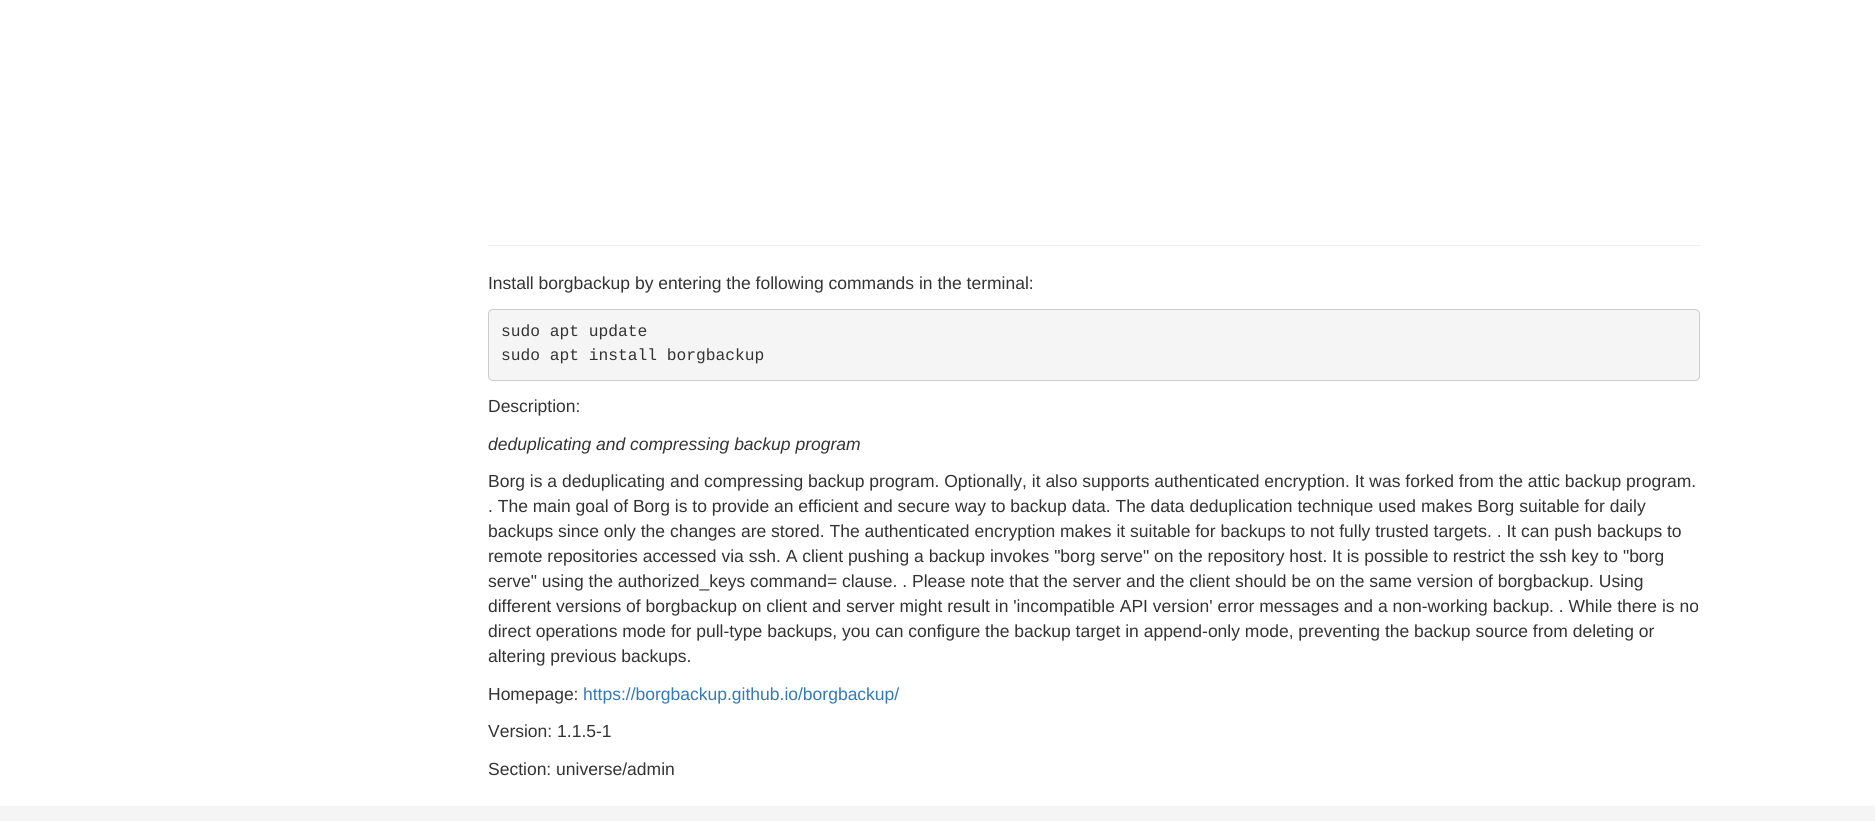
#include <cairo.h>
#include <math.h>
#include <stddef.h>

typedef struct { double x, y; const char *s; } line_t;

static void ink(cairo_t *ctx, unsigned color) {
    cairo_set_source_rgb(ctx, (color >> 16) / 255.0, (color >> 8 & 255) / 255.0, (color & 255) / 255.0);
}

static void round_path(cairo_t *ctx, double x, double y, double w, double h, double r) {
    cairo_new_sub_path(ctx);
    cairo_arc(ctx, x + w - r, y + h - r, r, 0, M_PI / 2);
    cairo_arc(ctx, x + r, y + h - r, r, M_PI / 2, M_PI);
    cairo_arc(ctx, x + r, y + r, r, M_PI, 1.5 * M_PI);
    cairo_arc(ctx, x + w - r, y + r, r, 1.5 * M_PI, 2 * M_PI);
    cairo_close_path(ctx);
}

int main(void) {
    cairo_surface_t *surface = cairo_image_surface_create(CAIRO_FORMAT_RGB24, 1875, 821);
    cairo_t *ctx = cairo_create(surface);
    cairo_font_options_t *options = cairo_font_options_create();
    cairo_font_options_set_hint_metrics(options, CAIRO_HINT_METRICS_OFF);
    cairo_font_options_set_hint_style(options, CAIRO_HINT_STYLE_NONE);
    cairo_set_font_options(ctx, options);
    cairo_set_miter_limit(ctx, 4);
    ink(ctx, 0xFFFFFF);
    cairo_paint(ctx);
    ink(ctx, 0xEEEEEE);
    cairo_rectangle(ctx, 488, 245, 1212, 1);
    cairo_fill(ctx);
    cairo_select_font_face(ctx, "Liberation Sans", CAIRO_FONT_SLANT_NORMAL, CAIRO_FONT_WEIGHT_NORMAL);
    cairo_set_font_size(ctx, 17.5);
    ink(ctx, 0x333333);
    cairo_move_to(ctx, 488, 289);
    cairo_show_text(ctx, "Install borgbackup by entering the following commands in the terminal:");
    ink(ctx, 0xF5F5F5);
    round_path(ctx, 488.5, 309.5, 1211, 71, 4.5);
    cairo_fill_preserve(ctx);
    ink(ctx, 0xCCCCCC);
    cairo_set_line_width(ctx, 1);
    cairo_stroke(ctx);
    cairo_select_font_face(ctx, "Liberation Mono", CAIRO_FONT_SLANT_NORMAL, CAIRO_FONT_WEIGHT_NORMAL);
    cairo_set_font_size(ctx, 16.25);
    ink(ctx, 0x333333);
    cairo_move_to(ctx, 501, 336);
    cairo_show_text(ctx, "sudo apt update");
    cairo_move_to(ctx, 501, 360);
    cairo_show_text(ctx, "sudo apt install borgbackup");
    cairo_select_font_face(ctx, "Liberation Sans", CAIRO_FONT_SLANT_NORMAL, CAIRO_FONT_WEIGHT_NORMAL);
    cairo_set_font_size(ctx, 17.5);
    cairo_move_to(ctx, 488, 412);
    cairo_show_text(ctx, "Description:");
    cairo_select_font_face(ctx, "Liberation Sans", CAIRO_FONT_SLANT_ITALIC, CAIRO_FONT_WEIGHT_NORMAL);
    cairo_move_to(ctx, 488, 450);
    cairo_show_text(ctx, "deduplicating and compressing backup program");
    cairo_select_font_face(ctx, "Liberation Sans", CAIRO_FONT_SLANT_NORMAL, CAIRO_FONT_WEIGHT_NORMAL);
    {
        static const line_t items[] = {
            {488, 487, "Borg is a deduplicating and compressing backup program. Optionally, it also supports authenticated encryption. It was forked from the attic backup program."},
            {488, 512, ". The main goal of Borg is to provide an efficient and secure way to backup data. The data deduplication technique used makes Borg suitable for daily"},
            {488, 537, "backups since only the changes are stored. The authenticated encryption makes it suitable for backups to not fully trusted targets. . It can push backups to"},
            {488, 562, "remote repositories accessed via ssh. A client pushing a backup invokes \"borg serve\" on the repository host. It is possible to restrict the ssh key to \"borg"},
            {488, 587, "serve\" using the authorized_keys command= clause. . Please note that the server and the client should be on the same version of borgbackup. Using"},
            {488, 612, "different versions of borgbackup on client and server might result in 'incompatible API version' error messages and a non-working backup. . While there is no"},
            {488, 637, "direct operations mode for pull-type backups, you can configure the backup target in append-only mode, preventing the backup source from deleting or"},
            {488, 662, "altering previous backups."},
            {488, 700, "Homepage:"},
        };
        for (size_t i = 0; i < sizeof items / sizeof *items; i++) {
            cairo_move_to(ctx, items[i].x, items[i].y);
            cairo_show_text(ctx, items[i].s);
        }
    }
    ink(ctx, 0x337AB7);
    cairo_move_to(ctx, 583, 700);
    cairo_show_text(ctx, "https://borgbackup.github.io/borgbackup/");
    ink(ctx, 0x333333);
    cairo_move_to(ctx, 488, 737);
    cairo_show_text(ctx, "Version: 1.1.5-1");
    cairo_move_to(ctx, 488, 775);
    cairo_show_text(ctx, "Section: universe/admin");
    ink(ctx, 0xF5F5F5);
    cairo_rectangle(ctx, 0, 806, 1875, 15);
    cairo_fill(ctx);
    cairo_surface_write_to_png(surface, "image.png");
    cairo_font_options_destroy(options);
    cairo_destroy(ctx);
    cairo_surface_destroy(surface);
    return 0;
}
